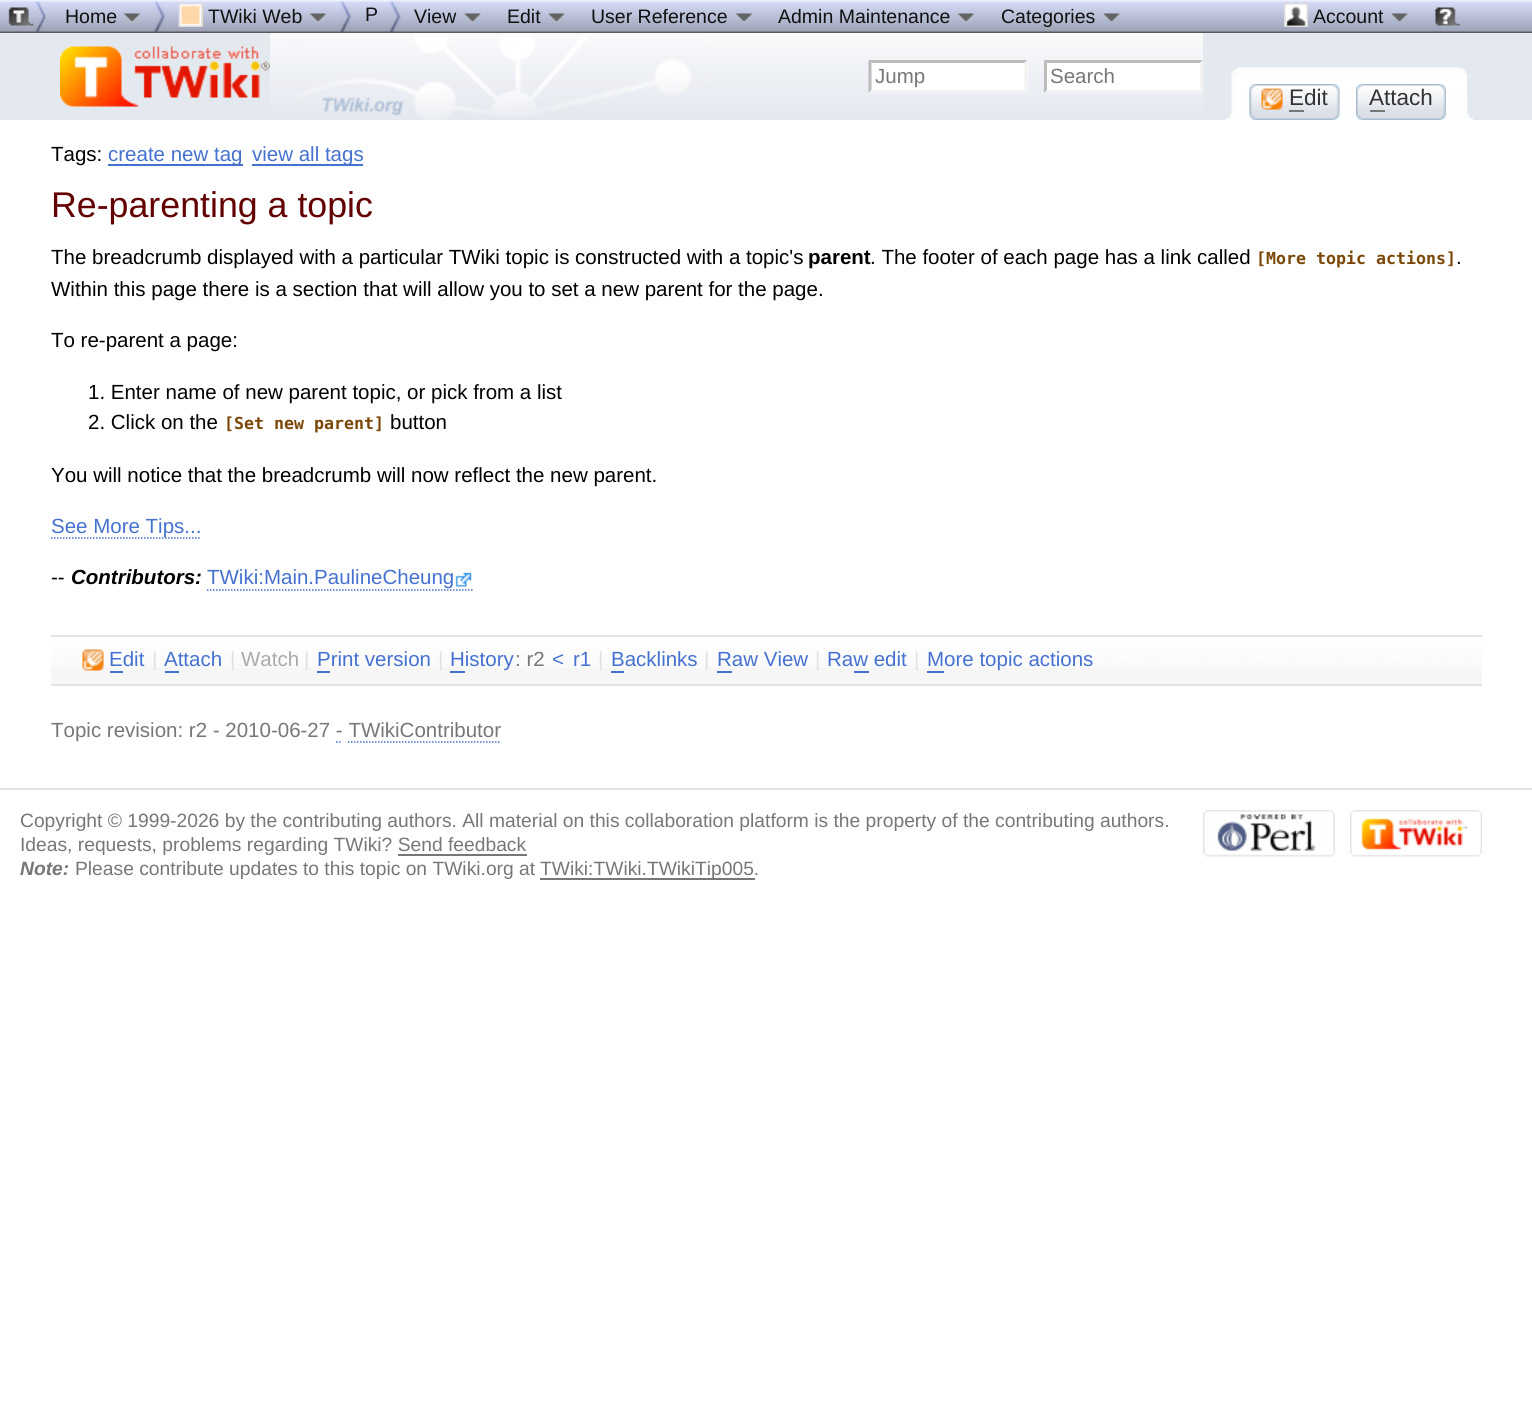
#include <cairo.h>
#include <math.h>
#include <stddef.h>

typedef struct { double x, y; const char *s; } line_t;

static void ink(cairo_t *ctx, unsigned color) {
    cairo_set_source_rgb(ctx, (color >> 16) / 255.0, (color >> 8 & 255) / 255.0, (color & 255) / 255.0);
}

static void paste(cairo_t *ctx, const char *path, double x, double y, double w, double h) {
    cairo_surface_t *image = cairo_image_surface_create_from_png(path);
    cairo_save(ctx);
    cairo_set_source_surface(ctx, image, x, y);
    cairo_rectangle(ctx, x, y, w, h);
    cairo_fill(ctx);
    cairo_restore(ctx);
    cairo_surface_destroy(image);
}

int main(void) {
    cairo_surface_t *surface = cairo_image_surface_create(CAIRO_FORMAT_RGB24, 1532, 1412);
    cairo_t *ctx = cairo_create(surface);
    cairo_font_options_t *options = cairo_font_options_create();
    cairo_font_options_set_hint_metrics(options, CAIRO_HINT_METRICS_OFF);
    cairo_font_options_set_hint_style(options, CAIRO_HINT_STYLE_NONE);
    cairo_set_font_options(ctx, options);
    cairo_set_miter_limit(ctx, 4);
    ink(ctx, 0xFFFFFF);
    cairo_paint(ctx);
    ink(ctx, 0xE4E9F0);
    cairo_rectangle(ctx, 0, 33, 1532, 87);
    cairo_fill(ctx);
    paste(ctx, "media/1.png", 0, 0, 8, 33);
    paste(ctx, "media/2.png", 8, 0, 1524, 33);
    paste(ctx, "media/3.png", 8, 1, 39, 31);
    cairo_select_font_face(ctx, "Liberation Sans", CAIRO_FONT_SLANT_NORMAL, CAIRO_FONT_WEIGHT_NORMAL);
    cairo_set_font_size(ctx, 19.5);
    ink(ctx, 0x111111);
    cairo_move_to(ctx, 65, 23);
    cairo_show_text(ctx, "Home");
    paste(ctx, "media/4.png", 123, 13, 18, 10);
    paste(ctx, "media/5.png", 154, 1, 12, 31);
    ink(ctx, 0xFFD8AA);
    cairo_rectangle(ctx, 181, 3, 22, 24);
    cairo_fill(ctx);
    paste(ctx, "media/6.png", 178, 3, 25, 24);
    ink(ctx, 0x111111);
    cairo_move_to(ctx, 208, 23);
    cairo_show_text(ctx, "TWiki Web");
    paste(ctx, "media/7.png", 309, 13, 18, 10);
    paste(ctx, "media/8.png", 340, 1, 12, 31);
    cairo_move_to(ctx, 365, 21);
    cairo_show_text(ctx, "P");
    paste(ctx, "media/9.png", 390, 1, 11, 31);
    cairo_move_to(ctx, 414, 23);
    cairo_show_text(ctx, "View");
    paste(ctx, "media/10.png", 463, 13, 19, 10);
    cairo_move_to(ctx, 507, 23);
    cairo_show_text(ctx, "Edit");
    paste(ctx, "media/11.png", 547, 13, 19, 10);
    cairo_move_to(ctx, 591, 23);
    cairo_show_text(ctx, "User Reference");
    paste(ctx, "media/12.png", 735, 13, 18, 10);
    cairo_move_to(ctx, 778, 23);
    cairo_show_text(ctx, "Admin Maintenance");
    paste(ctx, "media/7.png", 957, 13, 18, 10);
    cairo_move_to(ctx, 1001, 23);
    cairo_show_text(ctx, "Categories");
    paste(ctx, "media/13.png", 1102, 13, 19, 10);
    paste(ctx, "media/14.png", 1284, 3, 24, 24);
    cairo_move_to(ctx, 1313, 23);
    cairo_show_text(ctx, "Account");
    paste(ctx, "media/10.png", 1390, 13, 19, 10);
    paste(ctx, "media/15.png", 1435, 7, 25, 19);
    paste(ctx, "media/16.png", 60, 46, 210, 61);
    paste(ctx, "media/17.png", 270, 33, 933, 87);
    ink(ctx, 0xFFFFFF);
    cairo_rectangle(ctx, 869, 60, 159, 33);
    cairo_fill(ctx);
    ink(ctx, 0xBBBBBB);
    cairo_new_path(ctx);
    cairo_move_to(ctx, 868, 60);
    cairo_line_to(ctx, 1028, 60);
    cairo_line_to(ctx, 1024, 63);
    cairo_line_to(ctx, 872, 63);
    cairo_close_path(ctx);
    cairo_fill(ctx);
    ink(ctx, 0xF2F2F2);
    cairo_new_path(ctx);
    cairo_move_to(ctx, 1027.5, 60);
    cairo_line_to(ctx, 1027.5, 93);
    cairo_line_to(ctx, 1024.5, 90);
    cairo_line_to(ctx, 1024.5, 63);
    cairo_close_path(ctx);
    cairo_fill(ctx);
    cairo_new_path(ctx);
    cairo_move_to(ctx, 1028, 93);
    cairo_line_to(ctx, 868, 93);
    cairo_line_to(ctx, 872, 90);
    cairo_line_to(ctx, 1024, 90);
    cairo_close_path(ctx);
    cairo_fill(ctx);
    ink(ctx, 0xBBBBBB);
    cairo_new_path(ctx);
    cairo_move_to(ctx, 868.5, 93);
    cairo_line_to(ctx, 868.5, 60);
    cairo_line_to(ctx, 871.5, 63);
    cairo_line_to(ctx, 871.5, 90);
    cairo_close_path(ctx);
    cairo_fill(ctx);
    cairo_set_font_size(ctx, 20.5);
    ink(ctx, 0x777777);
    cairo_move_to(ctx, 875, 83);
    cairo_show_text(ctx, "Jump");
    ink(ctx, 0xFFFFFF);
    cairo_rectangle(ctx, 1044, 60, 159, 33);
    cairo_fill(ctx);
    ink(ctx, 0xBBBBBB);
    cairo_new_path(ctx);
    cairo_move_to(ctx, 1044, 60);
    cairo_line_to(ctx, 1203, 60);
    cairo_line_to(ctx, 1200, 63);
    cairo_line_to(ctx, 1047, 63);
    cairo_close_path(ctx);
    cairo_fill(ctx);
    ink(ctx, 0xF2F2F2);
    cairo_new_path(ctx);
    cairo_move_to(ctx, 1203, 60);
    cairo_line_to(ctx, 1203, 93);
    cairo_line_to(ctx, 1200, 90);
    cairo_line_to(ctx, 1200, 63);
    cairo_close_path(ctx);
    cairo_fill(ctx);
    cairo_new_path(ctx);
    cairo_move_to(ctx, 1203, 93);
    cairo_line_to(ctx, 1044, 93);
    cairo_line_to(ctx, 1047, 90);
    cairo_line_to(ctx, 1200, 90);
    cairo_close_path(ctx);
    cairo_fill(ctx);
    ink(ctx, 0xBBBBBB);
    cairo_new_path(ctx);
    cairo_move_to(ctx, 1044, 93);
    cairo_line_to(ctx, 1044, 60);
    cairo_line_to(ctx, 1047, 63);
    cairo_line_to(ctx, 1047, 90);
    cairo_close_path(ctx);
    cairo_fill(ctx);
    ink(ctx, 0x777777);
    cairo_move_to(ctx, 1050, 83);
    cairo_show_text(ctx, "Search");
    paste(ctx, "media/18.png", 1225, 67, 248, 53);
    paste(ctx, "media/19.png", 1249, 84, 91, 36);
    paste(ctx, "media/20.png", 1249, 84, 91, 36);
    paste(ctx, "media/21.png", 1261, 88, 22, 22);
    cairo_set_font_size(ctx, 22.5);
    ink(ctx, 0x333333);
    cairo_move_to(ctx, 1289, 105);
    cairo_show_text(ctx, "Edit");
    ink(ctx, 0x777777);
    cairo_rectangle(ctx, 1289, 110, 15, 2);
    cairo_fill(ctx);
    paste(ctx, "media/22.png", 1356, 84, 90, 36);
    paste(ctx, "media/23.png", 1356, 84, 90, 36);
    ink(ctx, 0x333333);
    cairo_move_to(ctx, 1369, 105);
    cairo_show_text(ctx, "Attach");
    ink(ctx, 0x777777);
    cairo_rectangle(ctx, 1370, 110, 15, 2);
    cairo_fill(ctx);
    cairo_set_font_size(ctx, 20.5);
    ink(ctx, 0x000000);
    cairo_move_to(ctx, 51, 161);
    cairo_show_text(ctx, "Tags:");
    ink(ctx, 0x4571D0);
    cairo_rectangle(ctx, 108, 164, 135, 2);
    cairo_fill(ctx);
    cairo_move_to(ctx, 108, 161);
    cairo_show_text(ctx, "create new tag");
    cairo_rectangle(ctx, 252, 164, 111, 2);
    cairo_fill(ctx);
    cairo_move_to(ctx, 252, 161);
    cairo_show_text(ctx, "view all tags");
    cairo_set_font_size(ctx, 35.75);
    ink(ctx, 0x630000);
    cairo_move_to(ctx, 51, 217);
    cairo_show_text(ctx, "Re-parenting a topic");
    cairo_set_font_size(ctx, 20.5);
    ink(ctx, 0x000000);
    cairo_move_to(ctx, 51, 264);
    cairo_show_text(ctx, "The breadcrumb displayed with a particular TWiki topic is constructed with a topic's");
    cairo_select_font_face(ctx, "Liberation Sans", CAIRO_FONT_SLANT_NORMAL, CAIRO_FONT_WEIGHT_BOLD);
    cairo_move_to(ctx, 808, 264);
    cairo_show_text(ctx, "parent");
    cairo_select_font_face(ctx, "Liberation Sans", CAIRO_FONT_SLANT_NORMAL, CAIRO_FONT_WEIGHT_NORMAL);
    cairo_move_to(ctx, 870, 264);
    cairo_show_text(ctx, ". The footer of each page has a link called");
    cairo_select_font_face(ctx, "DejaVu Sans Mono", CAIRO_FONT_SLANT_NORMAL, CAIRO_FONT_WEIGHT_BOLD);
    cairo_set_font_size(ctx, 16.6);
    ink(ctx, 0x7A4707);
    cairo_move_to(ctx, 1256, 264);
    cairo_show_text(ctx, "[More topic actions]");
    cairo_select_font_face(ctx, "Liberation Sans", CAIRO_FONT_SLANT_NORMAL, CAIRO_FONT_WEIGHT_NORMAL);
    cairo_set_font_size(ctx, 20.5);
    ink(ctx, 0x000000);
    {
        static const line_t items[] = {
            {1456, 264, "."},
            {51, 296, "Within this page there is a section that will allow you to set a new parent for the page."},
            {51, 347, "To re-parent a page:"},
            {88, 399, "1. Enter name of new parent topic, or pick from a list"},
            {88, 429, "2. Click on the"},
        };
        for (size_t i = 0; i < sizeof items / sizeof *items; i++) {
            cairo_move_to(ctx, items[i].x, items[i].y);
            cairo_show_text(ctx, items[i].s);
        }
    }
    cairo_select_font_face(ctx, "DejaVu Sans Mono", CAIRO_FONT_SLANT_NORMAL, CAIRO_FONT_WEIGHT_BOLD);
    cairo_set_font_size(ctx, 16.6);
    ink(ctx, 0x7A4707);
    cairo_move_to(ctx, 224, 429);
    cairo_show_text(ctx, "[Set new parent]");
    cairo_select_font_face(ctx, "Liberation Sans", CAIRO_FONT_SLANT_NORMAL, CAIRO_FONT_WEIGHT_NORMAL);
    cairo_set_font_size(ctx, 20.5);
    ink(ctx, 0x000000);
    cairo_move_to(ctx, 390, 429);
    cairo_show_text(ctx, "button");
    cairo_move_to(ctx, 51, 482);
    cairo_show_text(ctx, "You will notice that the breadcrumb will now reflect the new parent.");
    cairo_new_path(ctx);
    cairo_move_to(ctx, 51, 538);
    cairo_line_to(ctx, 201, 538);
    ink(ctx, 0x4571D0);
    cairo_set_line_width(ctx, 1.5);
    cairo_set_dash(ctx, (double[]){1.5, 1.5}, 2, 0);
    cairo_stroke(ctx);
    cairo_move_to(ctx, 51, 533);
    cairo_show_text(ctx, "See More Tips...");
    ink(ctx, 0x000000);
    cairo_move_to(ctx, 51, 584);
    cairo_show_text(ctx, "--");
    cairo_select_font_face(ctx, "Liberation Sans", CAIRO_FONT_SLANT_ITALIC, CAIRO_FONT_WEIGHT_BOLD);
    cairo_move_to(ctx, 71, 584);
    cairo_show_text(ctx, "Contributors:");
    cairo_select_font_face(ctx, "Liberation Sans", CAIRO_FONT_SLANT_NORMAL, CAIRO_FONT_WEIGHT_NORMAL);
    ink(ctx, 0x4571D0);
    cairo_move_to(ctx, 207, 584);
    cairo_show_text(ctx, "TWiki:Main.PaulineCheung");
    cairo_new_path(ctx);
    cairo_move_to(ctx, 207, 590);
    cairo_line_to(ctx, 453, 590);
    cairo_stroke(ctx);
    cairo_new_path(ctx);
    cairo_move_to(ctx, 453, 590);
    cairo_line_to(ctx, 472.5, 590);
    cairo_stroke(ctx);
    paste(ctx, "media/24.png", 455, 572, 17, 15);
    ink(ctx, 0xF6F6F6);
    cairo_rectangle(ctx, 51, 668, 1431, 16);
    cairo_fill(ctx);
    ink(ctx, 0xE2E2E2);
    cairo_rectangle(ctx, 51, 684, 1431, 2);
    cairo_fill(ctx);
    paste(ctx, "media/25.png", 51, 637, 1431, 31);
    cairo_rectangle(ctx, 51, 635, 1431, 2);
    cairo_fill(ctx);
    paste(ctx, "media/26.png", 82, 649, 22, 22);
    ink(ctx, 0x4571D0);
    cairo_move_to(ctx, 109, 666);
    cairo_show_text(ctx, "Edit");
    cairo_rectangle(ctx, 110, 671, 13, 2);
    cairo_fill(ctx);
    ink(ctx, 0xE2E2E2);
    cairo_move_to(ctx, 152, 666);
    cairo_show_text(ctx, "|");
    ink(ctx, 0x4571D0);
    cairo_move_to(ctx, 164, 666);
    cairo_show_text(ctx, "Attach");
    cairo_rectangle(ctx, 165, 671, 14, 2);
    cairo_fill(ctx);
    ink(ctx, 0xE2E2E2);
    cairo_move_to(ctx, 230, 666);
    cairo_show_text(ctx, "|");
    ink(ctx, 0xAAAAAA);
    cairo_move_to(ctx, 241, 666);
    cairo_show_text(ctx, "Watch");
    ink(ctx, 0xE2E2E2);
    cairo_move_to(ctx, 304, 666);
    cairo_show_text(ctx, "|");
    ink(ctx, 0x4571D0);
    cairo_move_to(ctx, 317, 666);
    cairo_show_text(ctx, "Print version");
    cairo_rectangle(ctx, 317, 671, 13, 2);
    cairo_fill(ctx);
    ink(ctx, 0xE2E2E2);
    cairo_move_to(ctx, 438, 666);
    cairo_show_text(ctx, "|");
    ink(ctx, 0x4571D0);
    cairo_move_to(ctx, 450, 666);
    cairo_show_text(ctx, "History");
    cairo_rectangle(ctx, 450, 671, 15, 2);
    cairo_fill(ctx);
    ink(ctx, 0x777777);
    cairo_move_to(ctx, 515, 666);
    cairo_show_text(ctx, ": r2");
    ink(ctx, 0x4571D0);
    cairo_move_to(ctx, 552, 666);
    cairo_show_text(ctx, "<");
    cairo_move_to(ctx, 573, 666);
    cairo_show_text(ctx, "r1");
    ink(ctx, 0xE2E2E2);
    cairo_move_to(ctx, 598, 666);
    cairo_show_text(ctx, "|");
    ink(ctx, 0x4571D0);
    cairo_move_to(ctx, 611, 666);
    cairo_show_text(ctx, "Backlinks");
    cairo_rectangle(ctx, 611, 671, 13, 2);
    cairo_fill(ctx);
    ink(ctx, 0xE2E2E2);
    cairo_move_to(ctx, 704, 666);
    cairo_show_text(ctx, "|");
    ink(ctx, 0x4571D0);
    cairo_move_to(ctx, 717, 666);
    cairo_show_text(ctx, "Raw View");
    cairo_rectangle(ctx, 717, 671, 15, 2);
    cairo_fill(ctx);
    ink(ctx, 0xE2E2E2);
    cairo_move_to(ctx, 815, 666);
    cairo_show_text(ctx, "|");
    ink(ctx, 0x4571D0);
    cairo_move_to(ctx, 827, 666);
    cairo_show_text(ctx, "Raw edit");
    cairo_rectangle(ctx, 854, 671, 15, 2);
    cairo_fill(ctx);
    ink(ctx, 0xE2E2E2);
    cairo_move_to(ctx, 914, 666);
    cairo_show_text(ctx, "|");
    ink(ctx, 0x4571D0);
    cairo_move_to(ctx, 927, 666);
    cairo_show_text(ctx, "More topic actions");
    cairo_rectangle(ctx, 927, 671, 17, 2);
    cairo_fill(ctx);
    ink(ctx, 0x777777);
    cairo_move_to(ctx, 51, 737);
    cairo_show_text(ctx, "Topic revision: r2 - 2010-06-27 - TWikiContributor");
    cairo_new_path(ctx);
    cairo_move_to(ctx, 336, 742);
    cairo_line_to(ctx, 337.5, 742);
    cairo_move_to(ctx, 339, 742);
    cairo_line_to(ctx, 340.5, 742);
    ink(ctx, 0x4571D0);
    cairo_set_dash(ctx, NULL, 0, 0);
    cairo_stroke(ctx);
    cairo_new_path(ctx);
    cairo_move_to(ctx, 348, 742);
    cairo_line_to(ctx, 501, 742);
    cairo_set_dash(ctx, (double[]){1.5, 1.5}, 2, 0);
    cairo_stroke(ctx);
    ink(ctx, 0xE2E2E2);
    cairo_rectangle(ctx, 0, 788, 1532, 2);
    cairo_fill(ctx);
    cairo_set_font_size(ctx, 19.25);
    ink(ctx, 0x777777);
    cairo_move_to(ctx, 20, 827);
    cairo_show_text(ctx, "Copyright © 1999-2026 by the contributing authors. All material on this collaboration platform is the property of the contributing authors.");
    paste(ctx, "media/27.png", 1203, 810, 132, 47);
    paste(ctx, "media/28.png", 1350, 810, 132, 47);
    cairo_move_to(ctx, 20, 851);
    cairo_show_text(ctx, "Ideas, requests, problems regarding TWiki? Send feedback");
    cairo_rectangle(ctx, 398, 854, 129, 2);
    cairo_fill(ctx);
    cairo_select_font_face(ctx, "Liberation Sans", CAIRO_FONT_SLANT_ITALIC, CAIRO_FONT_WEIGHT_BOLD);
    cairo_move_to(ctx, 20, 875);
    cairo_show_text(ctx, "Note:");
    cairo_select_font_face(ctx, "Liberation Sans", CAIRO_FONT_SLANT_NORMAL, CAIRO_FONT_WEIGHT_NORMAL);
    cairo_move_to(ctx, 75, 875);
    cairo_show_text(ctx, "Please contribute updates to this topic on TWiki.org at");
    cairo_rectangle(ctx, 540, 878, 215, 2);
    cairo_fill(ctx);
    cairo_move_to(ctx, 540, 875);
    cairo_show_text(ctx, "TWiki:TWiki.TWikiTip005.");
    cairo_surface_write_to_png(surface, "image.png");
    cairo_font_options_destroy(options);
    cairo_destroy(ctx);
    cairo_surface_destroy(surface);
    return 0;
}
